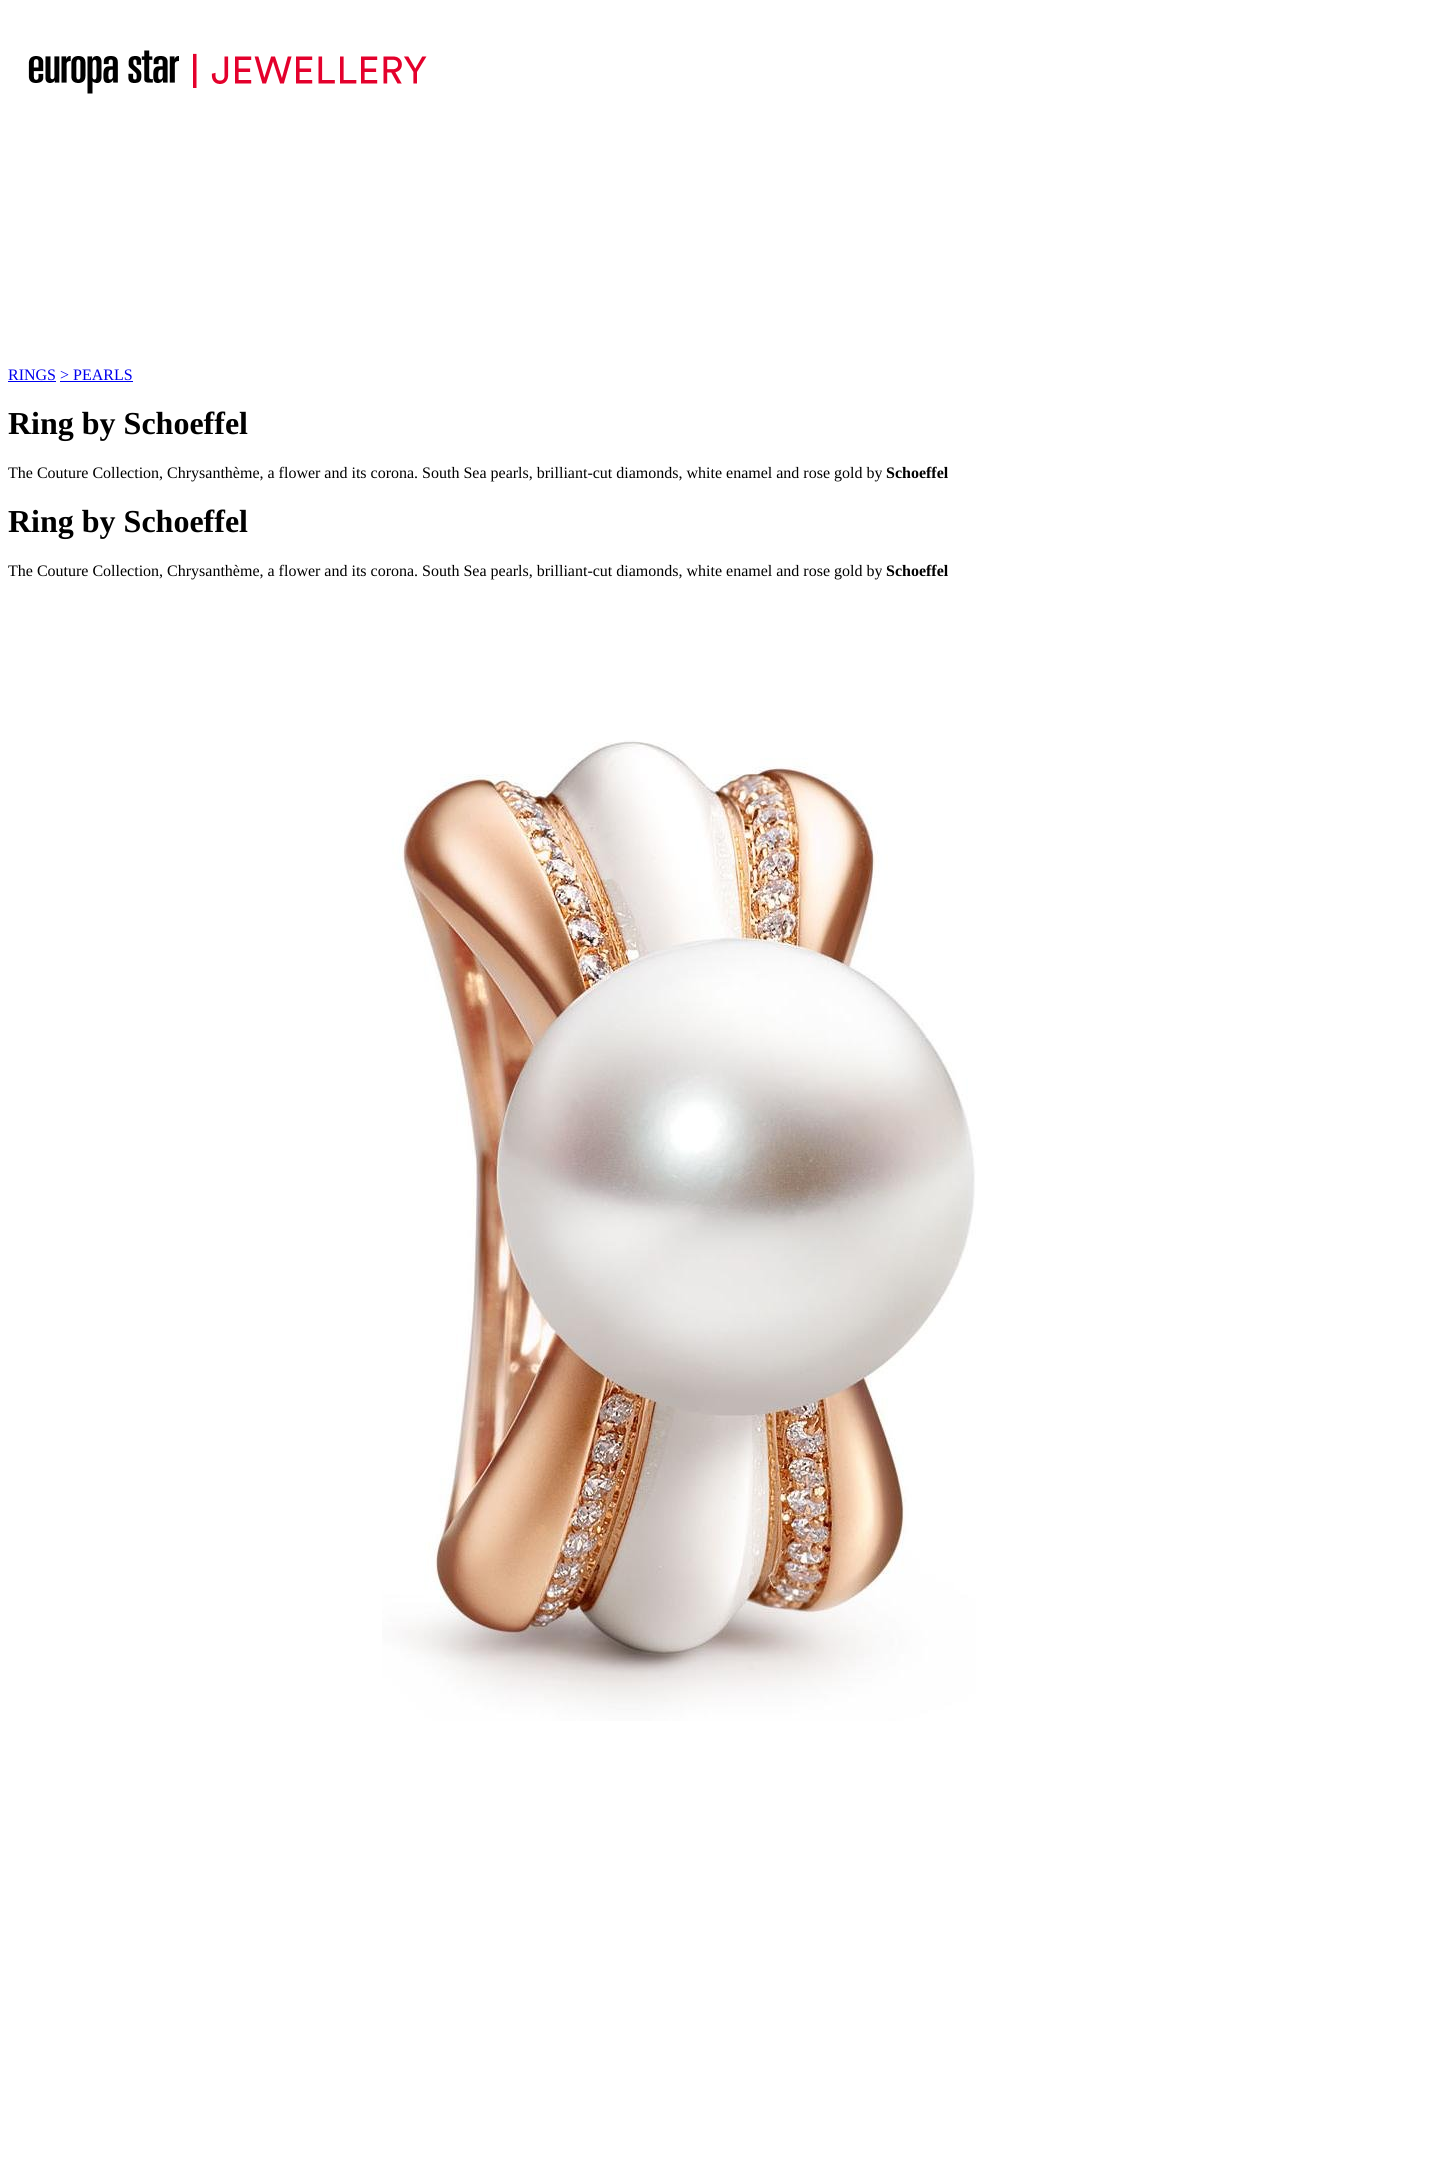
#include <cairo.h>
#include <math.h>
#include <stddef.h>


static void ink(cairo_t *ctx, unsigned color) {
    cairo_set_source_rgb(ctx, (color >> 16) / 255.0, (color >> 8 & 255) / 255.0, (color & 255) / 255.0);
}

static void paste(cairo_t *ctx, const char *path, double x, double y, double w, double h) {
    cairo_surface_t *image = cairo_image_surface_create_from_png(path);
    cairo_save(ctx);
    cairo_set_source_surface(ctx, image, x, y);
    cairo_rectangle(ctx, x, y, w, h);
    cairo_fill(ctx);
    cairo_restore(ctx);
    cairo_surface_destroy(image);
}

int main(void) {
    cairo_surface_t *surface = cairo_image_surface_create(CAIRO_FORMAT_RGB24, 1437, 2178);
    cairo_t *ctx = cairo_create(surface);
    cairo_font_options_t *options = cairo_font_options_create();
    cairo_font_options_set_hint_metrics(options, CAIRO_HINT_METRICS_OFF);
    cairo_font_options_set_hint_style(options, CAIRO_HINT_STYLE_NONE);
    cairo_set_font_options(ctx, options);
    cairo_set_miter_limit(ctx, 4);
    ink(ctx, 0xFFFFFF);
    cairo_paint(ctx);
    paste(ctx, "media/1.png", 28, 50, 399, 44);
    cairo_select_font_face(ctx, "Liberation Serif", CAIRO_FONT_SLANT_NORMAL, CAIRO_FONT_WEIGHT_NORMAL);
    cairo_set_font_size(ctx, 16);
    ink(ctx, 0x0000EE);
    cairo_move_to(ctx, 8, 380);
    cairo_show_text(ctx, "RINGS > PEARLS");
    cairo_rectangle(ctx, 8, 381, 48, 1);
    cairo_fill(ctx);
    cairo_rectangle(ctx, 60, 381, 73, 1);
    cairo_fill(ctx);
    cairo_select_font_face(ctx, "Liberation Serif", CAIRO_FONT_SLANT_NORMAL, CAIRO_FONT_WEIGHT_BOLD);
    cairo_set_font_size(ctx, 32);
    ink(ctx, 0x000000);
    cairo_move_to(ctx, 8, 434);
    cairo_show_text(ctx, "Ring by Schoeffel");
    cairo_select_font_face(ctx, "Liberation Serif", CAIRO_FONT_SLANT_NORMAL, CAIRO_FONT_WEIGHT_NORMAL);
    cairo_set_font_size(ctx, 16);
    cairo_move_to(ctx, 8, 478);
    cairo_show_text(ctx, "The Couture Collection, Chrysanthème, a flower and its corona. South Sea pearls, brilliant-cut diamonds, white enamel and rose gold by");
    cairo_select_font_face(ctx, "Liberation Serif", CAIRO_FONT_SLANT_NORMAL, CAIRO_FONT_WEIGHT_BOLD);
    cairo_move_to(ctx, 886, 478);
    cairo_show_text(ctx, "Schoeffel");
    cairo_set_font_size(ctx, 32);
    cairo_move_to(ctx, 8, 532);
    cairo_show_text(ctx, "Ring by Schoeffel");
    cairo_select_font_face(ctx, "Liberation Serif", CAIRO_FONT_SLANT_NORMAL, CAIRO_FONT_WEIGHT_NORMAL);
    cairo_set_font_size(ctx, 16);
    cairo_move_to(ctx, 8, 576);
    cairo_show_text(ctx, "The Couture Collection, Chrysanthème, a flower and its corona. South Sea pearls, brilliant-cut diamonds, white enamel and rose gold by");
    cairo_select_font_face(ctx, "Liberation Serif", CAIRO_FONT_SLANT_NORMAL, CAIRO_FONT_WEIGHT_BOLD);
    cairo_move_to(ctx, 886, 576);
    cairo_show_text(ctx, "Schoeffel");
    paste(ctx, "media/2.png", 382, 740, 594, 981);
    cairo_surface_write_to_png(surface, "image.png");
    cairo_font_options_destroy(options);
    cairo_destroy(ctx);
    cairo_surface_destroy(surface);
    return 0;
}
